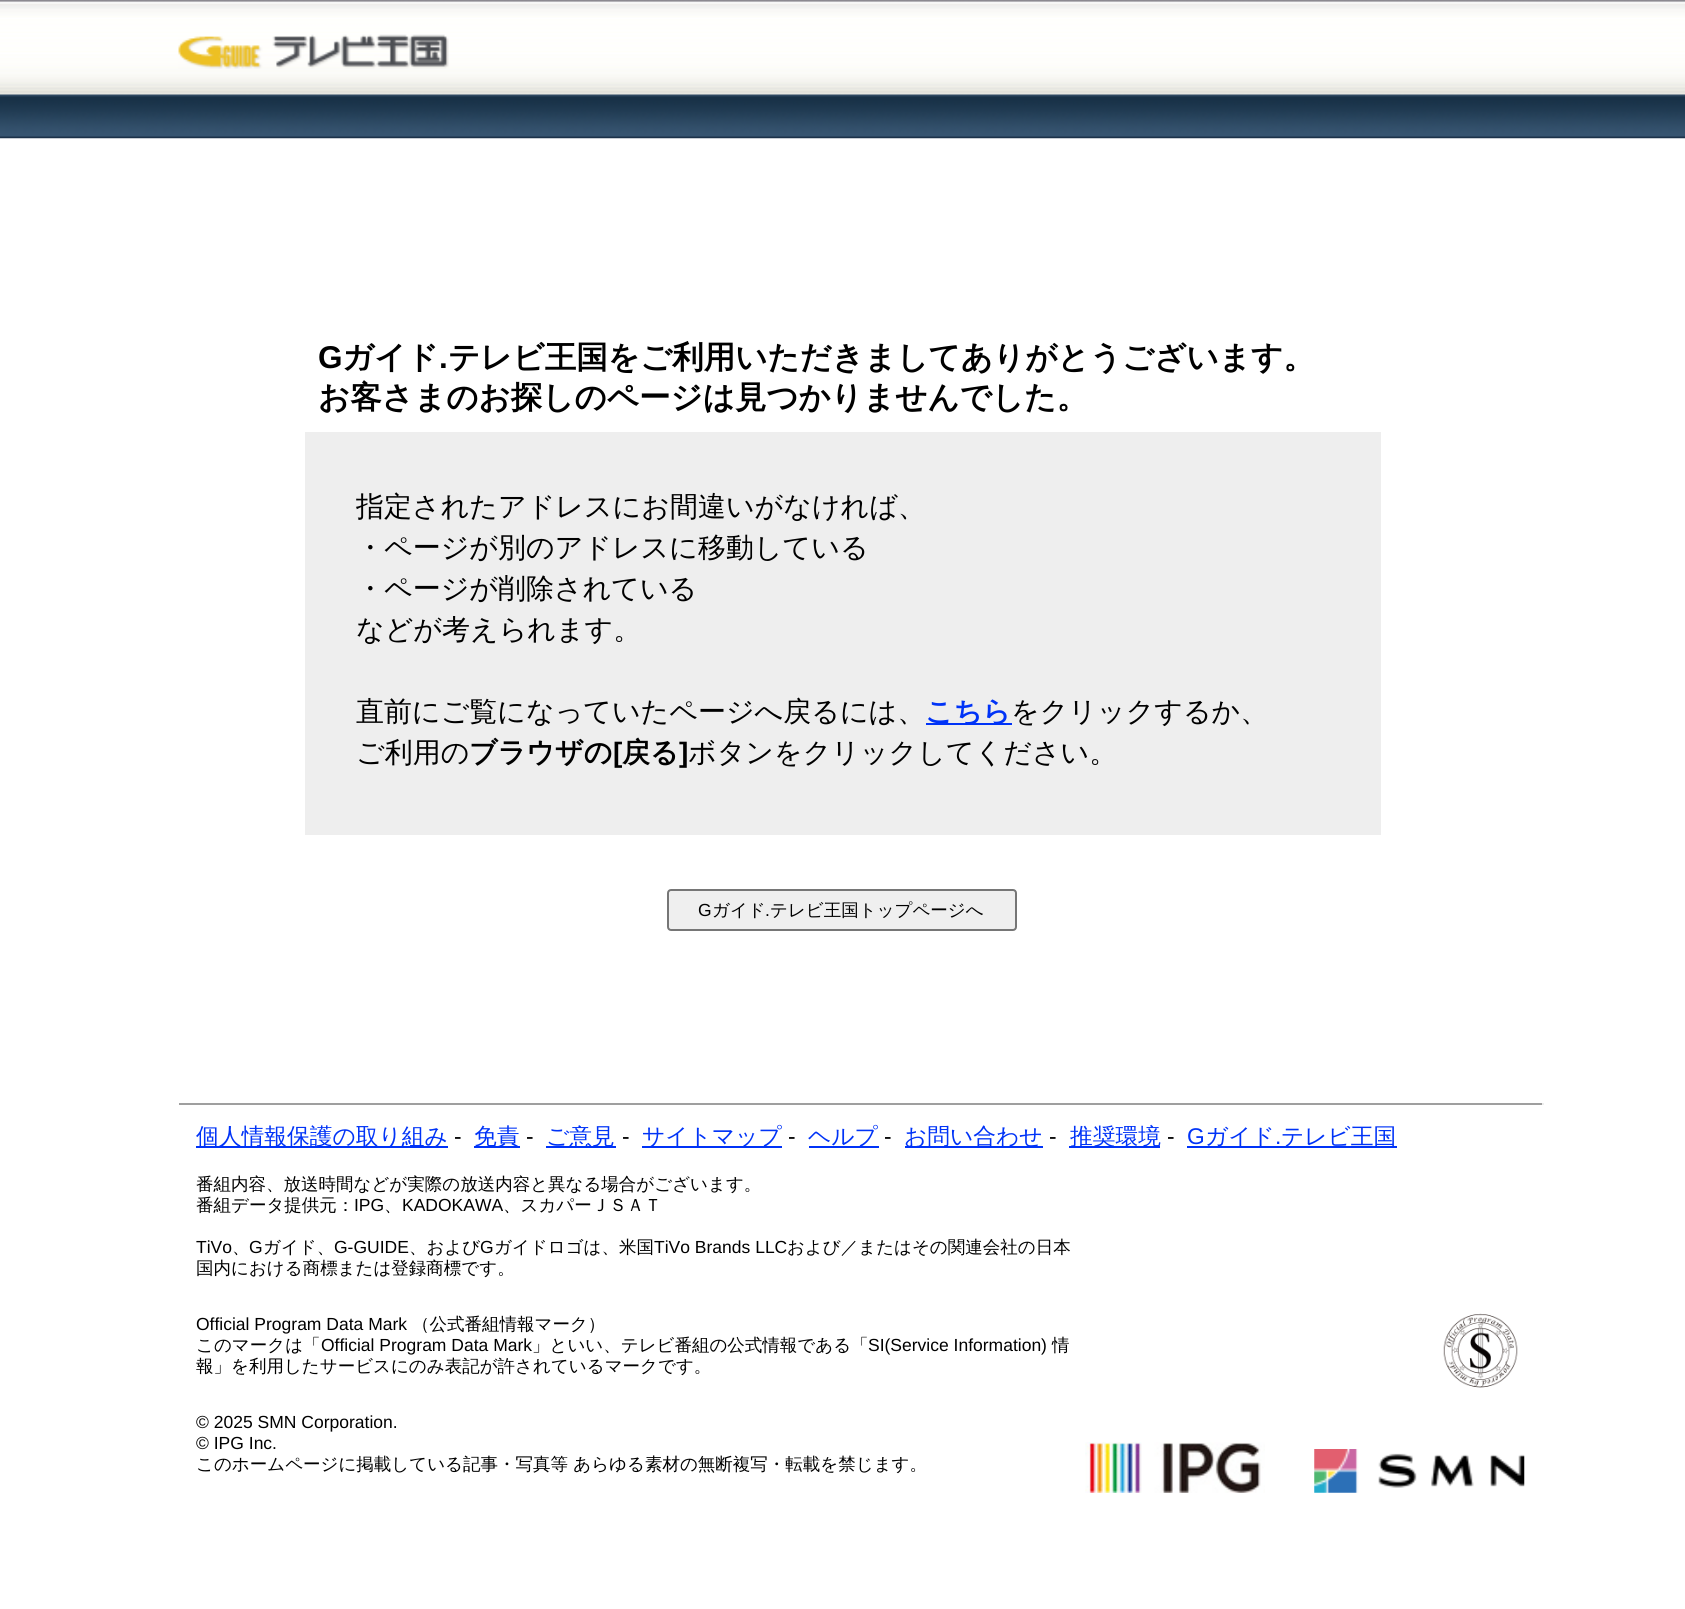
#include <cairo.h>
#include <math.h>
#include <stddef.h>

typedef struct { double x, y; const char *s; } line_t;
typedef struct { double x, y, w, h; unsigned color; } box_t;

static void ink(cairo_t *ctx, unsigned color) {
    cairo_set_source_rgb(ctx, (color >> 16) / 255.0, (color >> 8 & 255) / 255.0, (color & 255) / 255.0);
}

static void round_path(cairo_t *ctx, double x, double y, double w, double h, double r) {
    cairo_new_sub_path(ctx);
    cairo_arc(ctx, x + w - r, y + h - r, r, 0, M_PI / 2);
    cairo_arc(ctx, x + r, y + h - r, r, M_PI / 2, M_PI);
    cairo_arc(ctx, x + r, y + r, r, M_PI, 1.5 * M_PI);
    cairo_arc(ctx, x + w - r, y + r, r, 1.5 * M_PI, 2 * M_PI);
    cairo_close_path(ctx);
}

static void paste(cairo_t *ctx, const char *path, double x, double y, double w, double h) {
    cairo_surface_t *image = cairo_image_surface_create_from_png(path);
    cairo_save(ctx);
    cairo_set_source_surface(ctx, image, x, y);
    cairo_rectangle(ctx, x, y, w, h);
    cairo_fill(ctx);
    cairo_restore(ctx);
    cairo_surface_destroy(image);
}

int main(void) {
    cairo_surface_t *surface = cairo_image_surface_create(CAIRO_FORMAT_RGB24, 1685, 1609);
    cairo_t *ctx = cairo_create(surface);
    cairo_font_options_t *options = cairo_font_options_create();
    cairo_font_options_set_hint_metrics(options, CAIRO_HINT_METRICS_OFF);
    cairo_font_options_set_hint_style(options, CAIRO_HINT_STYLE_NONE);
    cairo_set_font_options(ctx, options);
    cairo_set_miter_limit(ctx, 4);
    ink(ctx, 0xFFFFFF);
    cairo_paint(ctx);
    paste(ctx, "media/1.png", 0, 0, 1685, 139);
    paste(ctx, "media/2.png", 178, 34, 271, 35);
    cairo_select_font_face(ctx, "Liberation Sans", CAIRO_FONT_SLANT_NORMAL, CAIRO_FONT_WEIGHT_BOLD);
    cairo_set_font_size(ctx, 31.5);
    ink(ctx, 0x000000);
    cairo_move_to(ctx, 318, 368);
    cairo_show_text(ctx, "G");
    cairo_select_font_face(ctx, "WenQuanYi Zen Hei", CAIRO_FONT_SLANT_NORMAL, CAIRO_FONT_WEIGHT_BOLD);
    cairo_move_to(ctx, 342, 368);
    cairo_show_text(ctx, "ガイド");
    cairo_select_font_face(ctx, "Liberation Sans", CAIRO_FONT_SLANT_NORMAL, CAIRO_FONT_WEIGHT_BOLD);
    cairo_move_to(ctx, 439, 368);
    cairo_show_text(ctx, ".");
    cairo_select_font_face(ctx, "WenQuanYi Zen Hei", CAIRO_FONT_SLANT_NORMAL, CAIRO_FONT_WEIGHT_BOLD);
    cairo_move_to(ctx, 448, 368);
    cairo_show_text(ctx, "テレビ王国をご利用いただきましてありがとうございます。");
    cairo_move_to(ctx, 318, 408);
    cairo_show_text(ctx, "お客さまのお探しのページは見つかりませんでした。");
    ink(ctx, 0xEEEEEE);
    cairo_rectangle(ctx, 305, 432, 1076, 403);
    cairo_fill(ctx);
    cairo_select_font_face(ctx, "WenQuanYi Zen Hei Medium", CAIRO_FONT_SLANT_NORMAL, CAIRO_FONT_WEIGHT_NORMAL);
    cairo_set_font_size(ctx, 28);
    ink(ctx, 0x000000);
    {
        static const line_t items[] = {
            {356, 516, "指定されたアドレスにお間違いがなければ、"},
            {356, 557, "・ページが別のアドレスに移動している"},
            {356, 598, "・ページが削除されている"},
            {356, 639, "などが考えられます。"},
            {356, 721, "直前にご覧になっていたページへ戻るには、"},
        };
        for (size_t i = 0; i < sizeof items / sizeof *items; i++) {
            cairo_move_to(ctx, items[i].x, items[i].y);
            cairo_show_text(ctx, items[i].s);
        }
    }
    ink(ctx, 0x0033F7);
    cairo_rectangle(ctx, 926, 723, 86, 2);
    cairo_fill(ctx);
    cairo_select_font_face(ctx, "WenQuanYi Zen Hei", CAIRO_FONT_SLANT_NORMAL, CAIRO_FONT_WEIGHT_BOLD);
    cairo_move_to(ctx, 925, 721);
    cairo_show_text(ctx, "こちら");
    cairo_select_font_face(ctx, "WenQuanYi Zen Hei Medium", CAIRO_FONT_SLANT_NORMAL, CAIRO_FONT_WEIGHT_NORMAL);
    ink(ctx, 0x000000);
    cairo_move_to(ctx, 1011, 721);
    cairo_show_text(ctx, "をクリックするか、");
    cairo_move_to(ctx, 356, 762);
    cairo_show_text(ctx, "ご利用の");
    cairo_select_font_face(ctx, "WenQuanYi Zen Hei", CAIRO_FONT_SLANT_NORMAL, CAIRO_FONT_WEIGHT_BOLD);
    cairo_move_to(ctx, 469, 762);
    cairo_show_text(ctx, "ブラウザの");
    cairo_select_font_face(ctx, "Liberation Sans", CAIRO_FONT_SLANT_NORMAL, CAIRO_FONT_WEIGHT_BOLD);
    cairo_move_to(ctx, 613, 762);
    cairo_show_text(ctx, "[");
    cairo_select_font_face(ctx, "WenQuanYi Zen Hei", CAIRO_FONT_SLANT_NORMAL, CAIRO_FONT_WEIGHT_BOLD);
    cairo_move_to(ctx, 622, 762);
    cairo_show_text(ctx, "戻る");
    cairo_select_font_face(ctx, "Liberation Sans", CAIRO_FONT_SLANT_NORMAL, CAIRO_FONT_WEIGHT_BOLD);
    cairo_move_to(ctx, 679, 762);
    cairo_show_text(ctx, "]");
    cairo_select_font_face(ctx, "WenQuanYi Zen Hei Medium", CAIRO_FONT_SLANT_NORMAL, CAIRO_FONT_WEIGHT_NORMAL);
    cairo_move_to(ctx, 688, 762);
    cairo_show_text(ctx, "ボタンをクリックしてください。");
    ink(ctx, 0xEFEFEF);
    round_path(ctx, 668, 890, 348, 40, 3);
    cairo_fill_preserve(ctx);
    ink(ctx, 0x767676);
    cairo_stroke(ctx);
    cairo_select_font_face(ctx, "Liberation Sans", CAIRO_FONT_SLANT_NORMAL, CAIRO_FONT_WEIGHT_NORMAL);
    cairo_set_font_size(ctx, 17.5);
    ink(ctx, 0x000000);
    cairo_move_to(ctx, 698, 916);
    cairo_show_text(ctx, "G");
    cairo_select_font_face(ctx, "WenQuanYi Zen Hei Medium", CAIRO_FONT_SLANT_NORMAL, CAIRO_FONT_WEIGHT_NORMAL);
    cairo_move_to(ctx, 712, 916);
    cairo_show_text(ctx, "ガイド");
    cairo_select_font_face(ctx, "Liberation Sans", CAIRO_FONT_SLANT_NORMAL, CAIRO_FONT_WEIGHT_NORMAL);
    cairo_move_to(ctx, 765, 916);
    cairo_show_text(ctx, ".");
    cairo_select_font_face(ctx, "WenQuanYi Zen Hei Medium", CAIRO_FONT_SLANT_NORMAL, CAIRO_FONT_WEIGHT_NORMAL);
    cairo_move_to(ctx, 770, 916);
    cairo_show_text(ctx, "テレビ王国トップページへ");
    {
        static const box_t items[] = {
            {179, 1103, 1365, 2, 0x9F9F9F},
            {1542, 1103, 2, 2, 0xEEEEEE},
            {196, 1146, 252, 2, 0x0033F7},
        };
        for (size_t i = 0; i < sizeof items / sizeof *items; i++) {
            ink(ctx, items[i].color);
            cairo_rectangle(ctx, items[i].x, items[i].y, items[i].w, items[i].h);
            cairo_fill(ctx);
        }
    }
    cairo_set_font_size(ctx, 22.75);
    cairo_move_to(ctx, 196, 1144);
    cairo_show_text(ctx, "個人情報保護の取り組み");
    cairo_select_font_face(ctx, "Liberation Sans", CAIRO_FONT_SLANT_NORMAL, CAIRO_FONT_WEIGHT_NORMAL);
    ink(ctx, 0x000000);
    cairo_move_to(ctx, 454, 1144);
    cairo_show_text(ctx, "-");
    ink(ctx, 0x0033F7);
    cairo_rectangle(ctx, 474, 1146, 46, 2);
    cairo_fill(ctx);
    cairo_select_font_face(ctx, "WenQuanYi Zen Hei Medium", CAIRO_FONT_SLANT_NORMAL, CAIRO_FONT_WEIGHT_NORMAL);
    cairo_move_to(ctx, 474, 1144);
    cairo_show_text(ctx, "免責");
    cairo_select_font_face(ctx, "Liberation Sans", CAIRO_FONT_SLANT_NORMAL, CAIRO_FONT_WEIGHT_NORMAL);
    ink(ctx, 0x000000);
    cairo_move_to(ctx, 526, 1144);
    cairo_show_text(ctx, "-");
    ink(ctx, 0x0033F7);
    cairo_rectangle(ctx, 546, 1146, 70, 2);
    cairo_fill(ctx);
    cairo_select_font_face(ctx, "WenQuanYi Zen Hei Medium", CAIRO_FONT_SLANT_NORMAL, CAIRO_FONT_WEIGHT_NORMAL);
    cairo_move_to(ctx, 546, 1144);
    cairo_show_text(ctx, "ご意見");
    cairo_select_font_face(ctx, "Liberation Sans", CAIRO_FONT_SLANT_NORMAL, CAIRO_FONT_WEIGHT_NORMAL);
    ink(ctx, 0x000000);
    cairo_move_to(ctx, 622, 1144);
    cairo_show_text(ctx, "-");
    ink(ctx, 0x0033F7);
    cairo_rectangle(ctx, 642, 1146, 140, 2);
    cairo_fill(ctx);
    cairo_select_font_face(ctx, "WenQuanYi Zen Hei Medium", CAIRO_FONT_SLANT_NORMAL, CAIRO_FONT_WEIGHT_NORMAL);
    cairo_move_to(ctx, 642, 1144);
    cairo_show_text(ctx, "サイトマップ");
    cairo_select_font_face(ctx, "Liberation Sans", CAIRO_FONT_SLANT_NORMAL, CAIRO_FONT_WEIGHT_NORMAL);
    ink(ctx, 0x000000);
    cairo_move_to(ctx, 788, 1144);
    cairo_show_text(ctx, "-");
    ink(ctx, 0x0033F7);
    cairo_rectangle(ctx, 809, 1146, 70, 2);
    cairo_fill(ctx);
    cairo_select_font_face(ctx, "WenQuanYi Zen Hei Medium", CAIRO_FONT_SLANT_NORMAL, CAIRO_FONT_WEIGHT_NORMAL);
    cairo_move_to(ctx, 808, 1144);
    cairo_show_text(ctx, "ヘルプ");
    cairo_select_font_face(ctx, "Liberation Sans", CAIRO_FONT_SLANT_NORMAL, CAIRO_FONT_WEIGHT_NORMAL);
    ink(ctx, 0x000000);
    cairo_move_to(ctx, 884, 1144);
    cairo_show_text(ctx, "-");
    ink(ctx, 0x0033F7);
    cairo_rectangle(ctx, 905, 1146, 138, 2);
    cairo_fill(ctx);
    cairo_select_font_face(ctx, "WenQuanYi Zen Hei Medium", CAIRO_FONT_SLANT_NORMAL, CAIRO_FONT_WEIGHT_NORMAL);
    cairo_move_to(ctx, 904, 1144);
    cairo_show_text(ctx, "お問い合わせ");
    cairo_select_font_face(ctx, "Liberation Sans", CAIRO_FONT_SLANT_NORMAL, CAIRO_FONT_WEIGHT_NORMAL);
    ink(ctx, 0x000000);
    cairo_move_to(ctx, 1049, 1144);
    cairo_show_text(ctx, "-");
    ink(ctx, 0x0033F7);
    cairo_rectangle(ctx, 1069, 1146, 91, 2);
    cairo_fill(ctx);
    cairo_select_font_face(ctx, "WenQuanYi Zen Hei Medium", CAIRO_FONT_SLANT_NORMAL, CAIRO_FONT_WEIGHT_NORMAL);
    cairo_move_to(ctx, 1070, 1144);
    cairo_show_text(ctx, "推奨環境");
    cairo_select_font_face(ctx, "Liberation Sans", CAIRO_FONT_SLANT_NORMAL, CAIRO_FONT_WEIGHT_NORMAL);
    ink(ctx, 0x000000);
    cairo_move_to(ctx, 1167, 1144);
    cairo_show_text(ctx, "-");
    ink(ctx, 0x0033F7);
    cairo_move_to(ctx, 1187, 1144);
    cairo_show_text(ctx, "G");
    cairo_rectangle(ctx, 1187, 1146, 210, 2);
    cairo_fill(ctx);
    cairo_select_font_face(ctx, "WenQuanYi Zen Hei Medium", CAIRO_FONT_SLANT_NORMAL, CAIRO_FONT_WEIGHT_NORMAL);
    cairo_move_to(ctx, 1205, 1144);
    cairo_show_text(ctx, "ガイド");
    cairo_move_to(ctx, 1281, 1144);
    cairo_show_text(ctx, "テレビ王国");
    cairo_select_font_face(ctx, "Liberation Sans", CAIRO_FONT_SLANT_NORMAL, CAIRO_FONT_WEIGHT_NORMAL);
    cairo_move_to(ctx, 1275, 1144);
    cairo_show_text(ctx, ".");
    cairo_select_font_face(ctx, "WenQuanYi Zen Hei Medium", CAIRO_FONT_SLANT_NORMAL, CAIRO_FONT_WEIGHT_NORMAL);
    cairo_set_font_size(ctx, 17.5);
    ink(ctx, 0x000000);
    cairo_move_to(ctx, 196, 1190);
    cairo_show_text(ctx, "番組内容、放送時間などが実際の放送内容と異なる場合がございます。");
    cairo_move_to(ctx, 196, 1211);
    cairo_show_text(ctx, "番組データ提供元：");
    cairo_select_font_face(ctx, "Liberation Sans", CAIRO_FONT_SLANT_NORMAL, CAIRO_FONT_WEIGHT_NORMAL);
    cairo_move_to(ctx, 354, 1211);
    cairo_show_text(ctx, "IPG");
    cairo_select_font_face(ctx, "WenQuanYi Zen Hei Medium", CAIRO_FONT_SLANT_NORMAL, CAIRO_FONT_WEIGHT_NORMAL);
    cairo_move_to(ctx, 384, 1211);
    cairo_show_text(ctx, "、");
    cairo_select_font_face(ctx, "Liberation Sans", CAIRO_FONT_SLANT_NORMAL, CAIRO_FONT_WEIGHT_NORMAL);
    cairo_move_to(ctx, 402, 1211);
    cairo_show_text(ctx, "KADOKAWA");
    cairo_select_font_face(ctx, "WenQuanYi Zen Hei Medium", CAIRO_FONT_SLANT_NORMAL, CAIRO_FONT_WEIGHT_NORMAL);
    cairo_move_to(ctx, 503, 1211);
    cairo_show_text(ctx, "、スカパーＪＳＡＴ");
    cairo_select_font_face(ctx, "Liberation Sans", CAIRO_FONT_SLANT_NORMAL, CAIRO_FONT_WEIGHT_NORMAL);
    cairo_move_to(ctx, 196, 1253);
    cairo_show_text(ctx, "TiVo");
    cairo_select_font_face(ctx, "WenQuanYi Zen Hei Medium", CAIRO_FONT_SLANT_NORMAL, CAIRO_FONT_WEIGHT_NORMAL);
    cairo_move_to(ctx, 232, 1253);
    cairo_show_text(ctx, "、");
    cairo_select_font_face(ctx, "Liberation Sans", CAIRO_FONT_SLANT_NORMAL, CAIRO_FONT_WEIGHT_NORMAL);
    cairo_move_to(ctx, 249, 1253);
    cairo_show_text(ctx, "G");
    cairo_select_font_face(ctx, "WenQuanYi Zen Hei Medium", CAIRO_FONT_SLANT_NORMAL, CAIRO_FONT_WEIGHT_NORMAL);
    cairo_move_to(ctx, 263, 1253);
    cairo_show_text(ctx, "ガイド、");
    cairo_select_font_face(ctx, "Liberation Sans", CAIRO_FONT_SLANT_NORMAL, CAIRO_FONT_WEIGHT_NORMAL);
    cairo_move_to(ctx, 334, 1253);
    cairo_show_text(ctx, "G-GUIDE");
    cairo_select_font_face(ctx, "WenQuanYi Zen Hei Medium", CAIRO_FONT_SLANT_NORMAL, CAIRO_FONT_WEIGHT_NORMAL);
    cairo_move_to(ctx, 409, 1253);
    cairo_show_text(ctx, "、および");
    cairo_select_font_face(ctx, "Liberation Sans", CAIRO_FONT_SLANT_NORMAL, CAIRO_FONT_WEIGHT_NORMAL);
    cairo_move_to(ctx, 480, 1253);
    cairo_show_text(ctx, "G");
    cairo_select_font_face(ctx, "WenQuanYi Zen Hei Medium", CAIRO_FONT_SLANT_NORMAL, CAIRO_FONT_WEIGHT_NORMAL);
    cairo_move_to(ctx, 494, 1253);
    cairo_show_text(ctx, "ガイドロゴは、米国");
    cairo_select_font_face(ctx, "Liberation Sans", CAIRO_FONT_SLANT_NORMAL, CAIRO_FONT_WEIGHT_NORMAL);
    cairo_move_to(ctx, 654, 1253);
    cairo_show_text(ctx, "TiVo Brands LLC");
    cairo_select_font_face(ctx, "WenQuanYi Zen Hei Medium", CAIRO_FONT_SLANT_NORMAL, CAIRO_FONT_WEIGHT_NORMAL);
    cairo_move_to(ctx, 787, 1253);
    cairo_show_text(ctx, "および／またはその関連会社の日本");
    cairo_move_to(ctx, 196, 1274);
    cairo_show_text(ctx, "国内における商標または登録商標です。");
    cairo_select_font_face(ctx, "Liberation Sans", CAIRO_FONT_SLANT_NORMAL, CAIRO_FONT_WEIGHT_NORMAL);
    cairo_move_to(ctx, 196, 1330);
    cairo_show_text(ctx, "Official Program Data Mark");
    cairo_select_font_face(ctx, "WenQuanYi Zen Hei Medium", CAIRO_FONT_SLANT_NORMAL, CAIRO_FONT_WEIGHT_NORMAL);
    cairo_move_to(ctx, 412, 1330);
    cairo_show_text(ctx, "（公式番組情報マーク）");
    cairo_move_to(ctx, 196, 1351);
    cairo_show_text(ctx, "このマークは「");
    cairo_select_font_face(ctx, "Liberation Sans", CAIRO_FONT_SLANT_NORMAL, CAIRO_FONT_WEIGHT_NORMAL);
    cairo_move_to(ctx, 321, 1351);
    cairo_show_text(ctx, "Official Program Data Mark");
    cairo_select_font_face(ctx, "WenQuanYi Zen Hei Medium", CAIRO_FONT_SLANT_NORMAL, CAIRO_FONT_WEIGHT_NORMAL);
    cairo_move_to(ctx, 532, 1351);
    cairo_show_text(ctx, "」といい、テレビ番組の公式情報である「");
    cairo_select_font_face(ctx, "Liberation Sans", CAIRO_FONT_SLANT_NORMAL, CAIRO_FONT_WEIGHT_NORMAL);
    cairo_move_to(ctx, 868, 1351);
    cairo_show_text(ctx, "SI(Service Information)");
    cairo_select_font_face(ctx, "WenQuanYi Zen Hei Medium", CAIRO_FONT_SLANT_NORMAL, CAIRO_FONT_WEIGHT_NORMAL);
    cairo_move_to(ctx, 1052, 1351);
    cairo_show_text(ctx, "情");
    cairo_move_to(ctx, 196, 1372);
    cairo_show_text(ctx, "報」を利用したサービスにのみ表記が許されているマークです。");
    paste(ctx, "media/3.png", 1443, 1313, 75, 75);
    cairo_select_font_face(ctx, "Liberation Sans", CAIRO_FONT_SLANT_NORMAL, CAIRO_FONT_WEIGHT_NORMAL);
    cairo_move_to(ctx, 196, 1428);
    cairo_show_text(ctx, "© 2025 SMN Corporation.");
    cairo_move_to(ctx, 196, 1449);
    cairo_show_text(ctx, "© IPG Inc.");
    cairo_select_font_face(ctx, "WenQuanYi Zen Hei Medium", CAIRO_FONT_SLANT_NORMAL, CAIRO_FONT_WEIGHT_NORMAL);
    cairo_move_to(ctx, 196, 1470);
    cairo_show_text(ctx, "このホームページに掲載している記事・写真等 あらゆる素材の無断複写・転載を禁じます。");
    paste(ctx, "media/4.png", 1085, 1442, 180, 51);
    paste(ctx, "media/5.png", 1314, 1449, 211, 44);
    cairo_surface_write_to_png(surface, "image.png");
    cairo_font_options_destroy(options);
    cairo_destroy(ctx);
    cairo_surface_destroy(surface);
    return 0;
}
